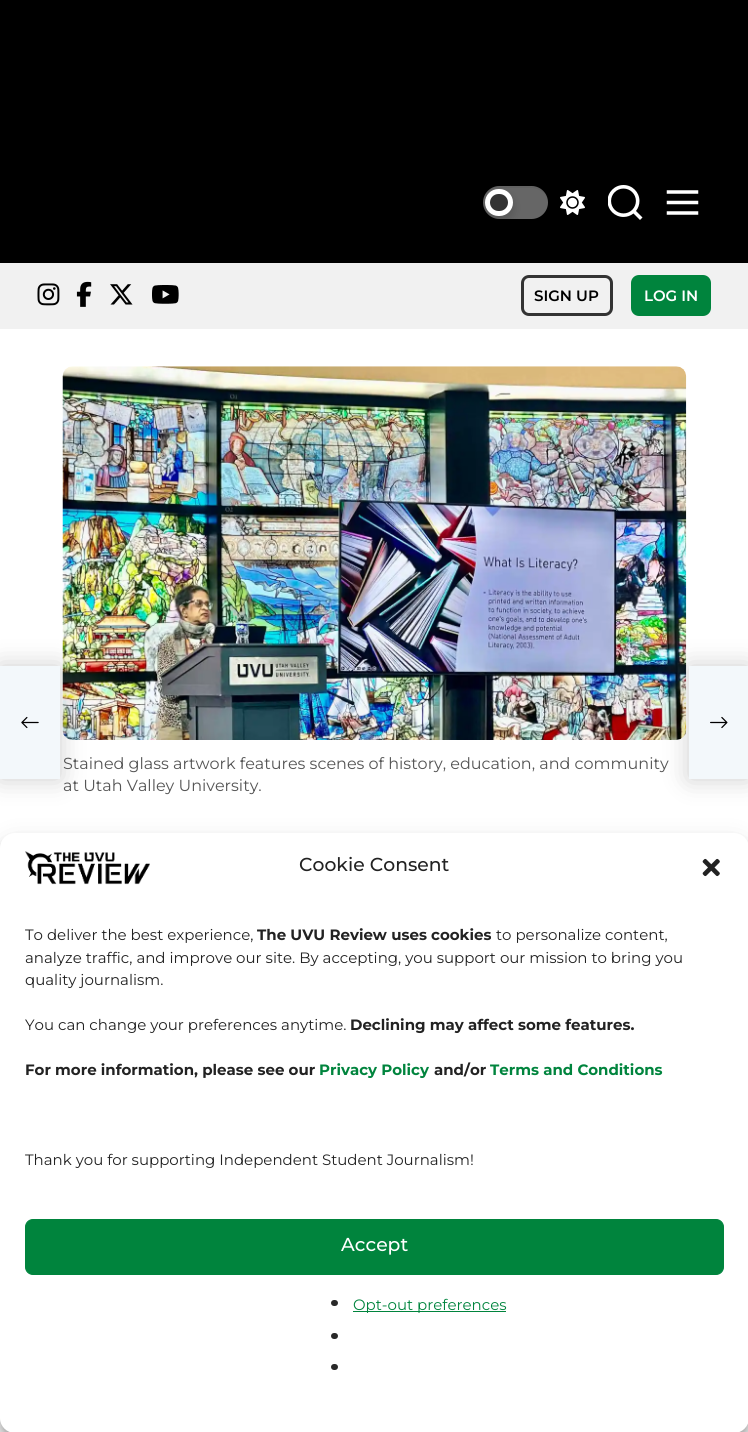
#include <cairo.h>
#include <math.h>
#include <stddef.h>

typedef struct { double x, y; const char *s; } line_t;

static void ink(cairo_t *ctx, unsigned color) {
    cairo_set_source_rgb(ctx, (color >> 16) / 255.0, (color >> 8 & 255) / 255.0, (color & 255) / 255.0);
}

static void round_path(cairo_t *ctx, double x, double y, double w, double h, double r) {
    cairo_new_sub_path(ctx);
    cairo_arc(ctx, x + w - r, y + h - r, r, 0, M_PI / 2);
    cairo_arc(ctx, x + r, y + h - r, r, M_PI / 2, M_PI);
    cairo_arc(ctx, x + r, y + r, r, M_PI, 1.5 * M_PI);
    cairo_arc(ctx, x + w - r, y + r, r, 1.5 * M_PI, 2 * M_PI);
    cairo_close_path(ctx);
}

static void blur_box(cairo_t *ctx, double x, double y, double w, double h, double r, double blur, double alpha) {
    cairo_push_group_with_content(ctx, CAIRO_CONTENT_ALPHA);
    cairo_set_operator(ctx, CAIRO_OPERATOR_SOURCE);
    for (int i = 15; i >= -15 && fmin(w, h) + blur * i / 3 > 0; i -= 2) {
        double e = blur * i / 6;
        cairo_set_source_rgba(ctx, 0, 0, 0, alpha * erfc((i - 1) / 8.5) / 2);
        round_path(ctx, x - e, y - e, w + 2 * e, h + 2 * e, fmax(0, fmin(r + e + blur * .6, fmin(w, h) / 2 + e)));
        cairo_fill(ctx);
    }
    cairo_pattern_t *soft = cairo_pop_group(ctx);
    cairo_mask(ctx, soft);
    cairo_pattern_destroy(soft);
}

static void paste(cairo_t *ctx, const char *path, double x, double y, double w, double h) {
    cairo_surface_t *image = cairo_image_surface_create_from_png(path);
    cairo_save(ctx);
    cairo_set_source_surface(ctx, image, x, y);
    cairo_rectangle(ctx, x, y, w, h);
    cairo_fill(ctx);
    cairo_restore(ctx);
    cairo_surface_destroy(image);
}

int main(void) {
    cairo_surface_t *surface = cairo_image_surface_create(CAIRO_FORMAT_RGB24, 748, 1432);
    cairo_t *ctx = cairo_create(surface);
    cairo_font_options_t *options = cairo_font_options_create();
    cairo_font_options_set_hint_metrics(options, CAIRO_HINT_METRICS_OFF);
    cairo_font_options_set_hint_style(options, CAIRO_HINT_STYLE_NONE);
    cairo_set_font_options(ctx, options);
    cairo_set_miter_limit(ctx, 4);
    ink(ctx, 0xFFFFFF);
    cairo_paint(ctx);
    ink(ctx, 0x000000);
    cairo_rectangle(ctx, 0, 0, 748, 263);
    cairo_fill(ctx);
    ink(ctx, 0x666666);
    round_path(ctx, 483, 186, 65, 33, 16.5);
    cairo_fill(ctx);
    cairo_set_source_rgba(ctx, 0, 0, 0, 0.05);
    cairo_new_path(ctx);
    cairo_move_to(ctx, 499, 188);
    cairo_line_to(ctx, 531, 188);
    cairo_curve_to(ctx, 540, 188, 548, 195, 548, 203);
    cairo_curve_to(ctx, 548, 200, 547, 196, 545, 193);
    cairo_curve_to(ctx, 539, 184, 526, 186, 516, 186);
    cairo_curve_to(ctx, 504, 186, 490, 183, 484, 196);
    cairo_curve_to(ctx, 487, 191, 493, 188, 499, 188);
    cairo_close_path(ctx);
    cairo_fill(ctx);
    ink(ctx, 0x000000);
    blur_box(ctx, 485, 194, 28, 27, 13.5, 5, 0.16);
    ink(ctx, 0x333333);
    round_path(ctx, 487.5, 191.5, 23, 22, 11);
    cairo_fill_preserve(ctx);
    ink(ctx, 0xFFFFFF);
    cairo_set_line_width(ctx, 5);
    cairo_stroke(ctx);
    paste(ctx, "media/1.png", 560, 190, 25, 25);
    paste(ctx, "media/2.png", 608, 185, 35, 35);
    paste(ctx, "media/3.png", 666, 190, 33, 25);
    ink(ctx, 0xF1F1F1);
    cairo_rectangle(ctx, 0, 263, 748, 66);
    cairo_fill(ctx);
    paste(ctx, "media/4.png", 37, 283, 23, 23);
    paste(ctx, "media/5.png", 76, 281, 16, 26);
    paste(ctx, "media/6.png", 110, 284, 23, 21);
    paste(ctx, "media/7.png", 152, 285, 27, 19);
    round_path(ctx, 522.5, 276.5, 89, 38, 6.5);
    ink(ctx, 0x333333);
    cairo_set_line_width(ctx, 3);
    cairo_stroke(ctx);
    cairo_select_font_face(ctx, "Montserrat SemiBold", CAIRO_FONT_SLANT_NORMAL, CAIRO_FONT_WEIGHT_NORMAL);
    cairo_set_font_size(ctx, 15);
    ink(ctx, 0x000000);
    cairo_move_to(ctx, 534, 301);
    cairo_show_text(ctx, "SIGN UP");
    ink(ctx, 0x00843D);
    round_path(ctx, 632.5, 276.5, 77, 38, 6.5);
    cairo_fill_preserve(ctx);
    cairo_stroke(ctx);
    ink(ctx, 0xFFFFFF);
    cairo_move_to(ctx, 644, 301);
    cairo_show_text(ctx, "LOG IN");
    paste(ctx, "media/10.png", 62, 366, 625, 374);
    ink(ctx, 0x000000);
    blur_box(ctx, 0, 666, 60, 113, 0, 12.5, 0.2);
    ink(ctx, 0xF3F8FB);
    cairo_rectangle(ctx, 0, 666, 60, 113);
    cairo_fill(ctx);
    paste(ctx, "media/8.png", 21, 716, 18, 13);
    ink(ctx, 0x000000);
    blur_box(ctx, 689, 666, 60, 113, 0, 12.5, 0.2);
    ink(ctx, 0xF3F8FB);
    cairo_rectangle(ctx, 689, 666, 59, 113);
    cairo_fill(ctx);
    paste(ctx, "media/9.png", 710, 716, 18, 13);
    cairo_select_font_face(ctx, "Montserrat", CAIRO_FONT_SLANT_NORMAL, CAIRO_FONT_WEIGHT_NORMAL);
    cairo_set_font_size(ctx, 16);
    ink(ctx, 0x555555);
    cairo_move_to(ctx, 63, 769);
    cairo_show_text(ctx, "Stained glass artwork features scenes of history, education, and community");
    cairo_move_to(ctx, 63, 791);
    cairo_show_text(ctx, "at Utah Valley University.");
    ink(ctx, 0x000000);
    blur_box(ctx, 0, 840, 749, 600, 15, 4, 0.23);
    blur_box(ctx, 0, 845, 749, 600, 15, 12.5, 0.19);
    ink(ctx, 0xFFFFFF);
    round_path(ctx, 0, 833, 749, 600, 15);
    cairo_fill(ctx);
    paste(ctx, "media/11.png", 25, 851, 125, 34);
    cairo_select_font_face(ctx, "Montserrat Medium", CAIRO_FONT_SLANT_NORMAL, CAIRO_FONT_WEIGHT_NORMAL);
    cairo_set_font_size(ctx, 18.75);
    ink(ctx, 0x222222);
    cairo_move_to(ctx, 299, 871);
    cairo_show_text(ctx, "Cookie Consent");
    paste(ctx, "media/12.png", 702, 858, 18, 19);
    cairo_select_font_face(ctx, "Montserrat", CAIRO_FONT_SLANT_NORMAL, CAIRO_FONT_WEIGHT_NORMAL);
    cairo_set_font_size(ctx, 15);
    cairo_move_to(ctx, 25, 940);
    cairo_show_text(ctx, "To deliver the best experience,");
    cairo_select_font_face(ctx, "Montserrat", CAIRO_FONT_SLANT_NORMAL, CAIRO_FONT_WEIGHT_BOLD);
    cairo_move_to(ctx, 257, 940);
    cairo_show_text(ctx, "The UVU Review uses cookies");
    cairo_select_font_face(ctx, "Montserrat", CAIRO_FONT_SLANT_NORMAL, CAIRO_FONT_WEIGHT_NORMAL);
    {
        static const line_t items[] = {
            {496, 940, "to personalize content,"},
            {25, 963, "analyze traffic, and improve our site. By accepting, you support our mission to bring you"},
            {25, 985, "quality journalism."},
            {25, 1030, "You can change your preferences anytime."},
        };
        for (size_t i = 0; i < sizeof items / sizeof *items; i++) {
            cairo_move_to(ctx, items[i].x, items[i].y);
            cairo_show_text(ctx, items[i].s);
        }
    }
    cairo_select_font_face(ctx, "Montserrat", CAIRO_FONT_SLANT_NORMAL, CAIRO_FONT_WEIGHT_BOLD);
    cairo_move_to(ctx, 350, 1030);
    cairo_show_text(ctx, "Declining may affect some features.");
    cairo_move_to(ctx, 25, 1075);
    cairo_show_text(ctx, "For more information, please see our");
    ink(ctx, 0x00843D);
    cairo_move_to(ctx, 319, 1075);
    cairo_show_text(ctx, "Privacy Policy");
    ink(ctx, 0x222222);
    cairo_move_to(ctx, 434, 1075);
    cairo_show_text(ctx, "and/or");
    ink(ctx, 0x00843D);
    cairo_move_to(ctx, 490, 1075);
    cairo_show_text(ctx, "Terms and Conditions");
    cairo_select_font_face(ctx, "Montserrat", CAIRO_FONT_SLANT_NORMAL, CAIRO_FONT_WEIGHT_NORMAL);
    ink(ctx, 0x222222);
    cairo_move_to(ctx, 25, 1165);
    cairo_show_text(ctx, "Thank you for supporting Independent Student Journalism!");
    ink(ctx, 0x00843D);
    round_path(ctx, 25.5, 1219.5, 698, 55, 7.5);
    cairo_fill_preserve(ctx);
    cairo_set_line_width(ctx, 1);
    cairo_stroke(ctx);
    cairo_select_font_face(ctx, "Montserrat Medium", CAIRO_FONT_SLANT_NORMAL, CAIRO_FONT_WEIGHT_NORMAL);
    cairo_set_font_size(ctx, 18.75);
    ink(ctx, 0xFFFFFF);
    cairo_move_to(ctx, 341, 1251);
    cairo_show_text(ctx, "Accept");
    ink(ctx, 0x292929);
    round_path(ctx, 331, 1300, 7, 6, 3);
    cairo_fill(ctx);
    ink(ctx, 0x00843D);
    cairo_rectangle(ctx, 353, 1311, 153, 1);
    cairo_fill(ctx);
    cairo_select_font_face(ctx, "Montserrat", CAIRO_FONT_SLANT_NORMAL, CAIRO_FONT_WEIGHT_NORMAL);
    cairo_set_font_size(ctx, 15);
    cairo_move_to(ctx, 353, 1310);
    cairo_show_text(ctx, "Opt-out preferences");
    ink(ctx, 0x292929);
    round_path(ctx, 331, 1333, 7, 6, 3);
    cairo_fill(ctx);
    round_path(ctx, 331, 1364, 7, 6, 3);
    cairo_fill(ctx);
    cairo_surface_write_to_png(surface, "image.png");
    cairo_font_options_destroy(options);
    cairo_destroy(ctx);
    cairo_surface_destroy(surface);
    return 0;
}
